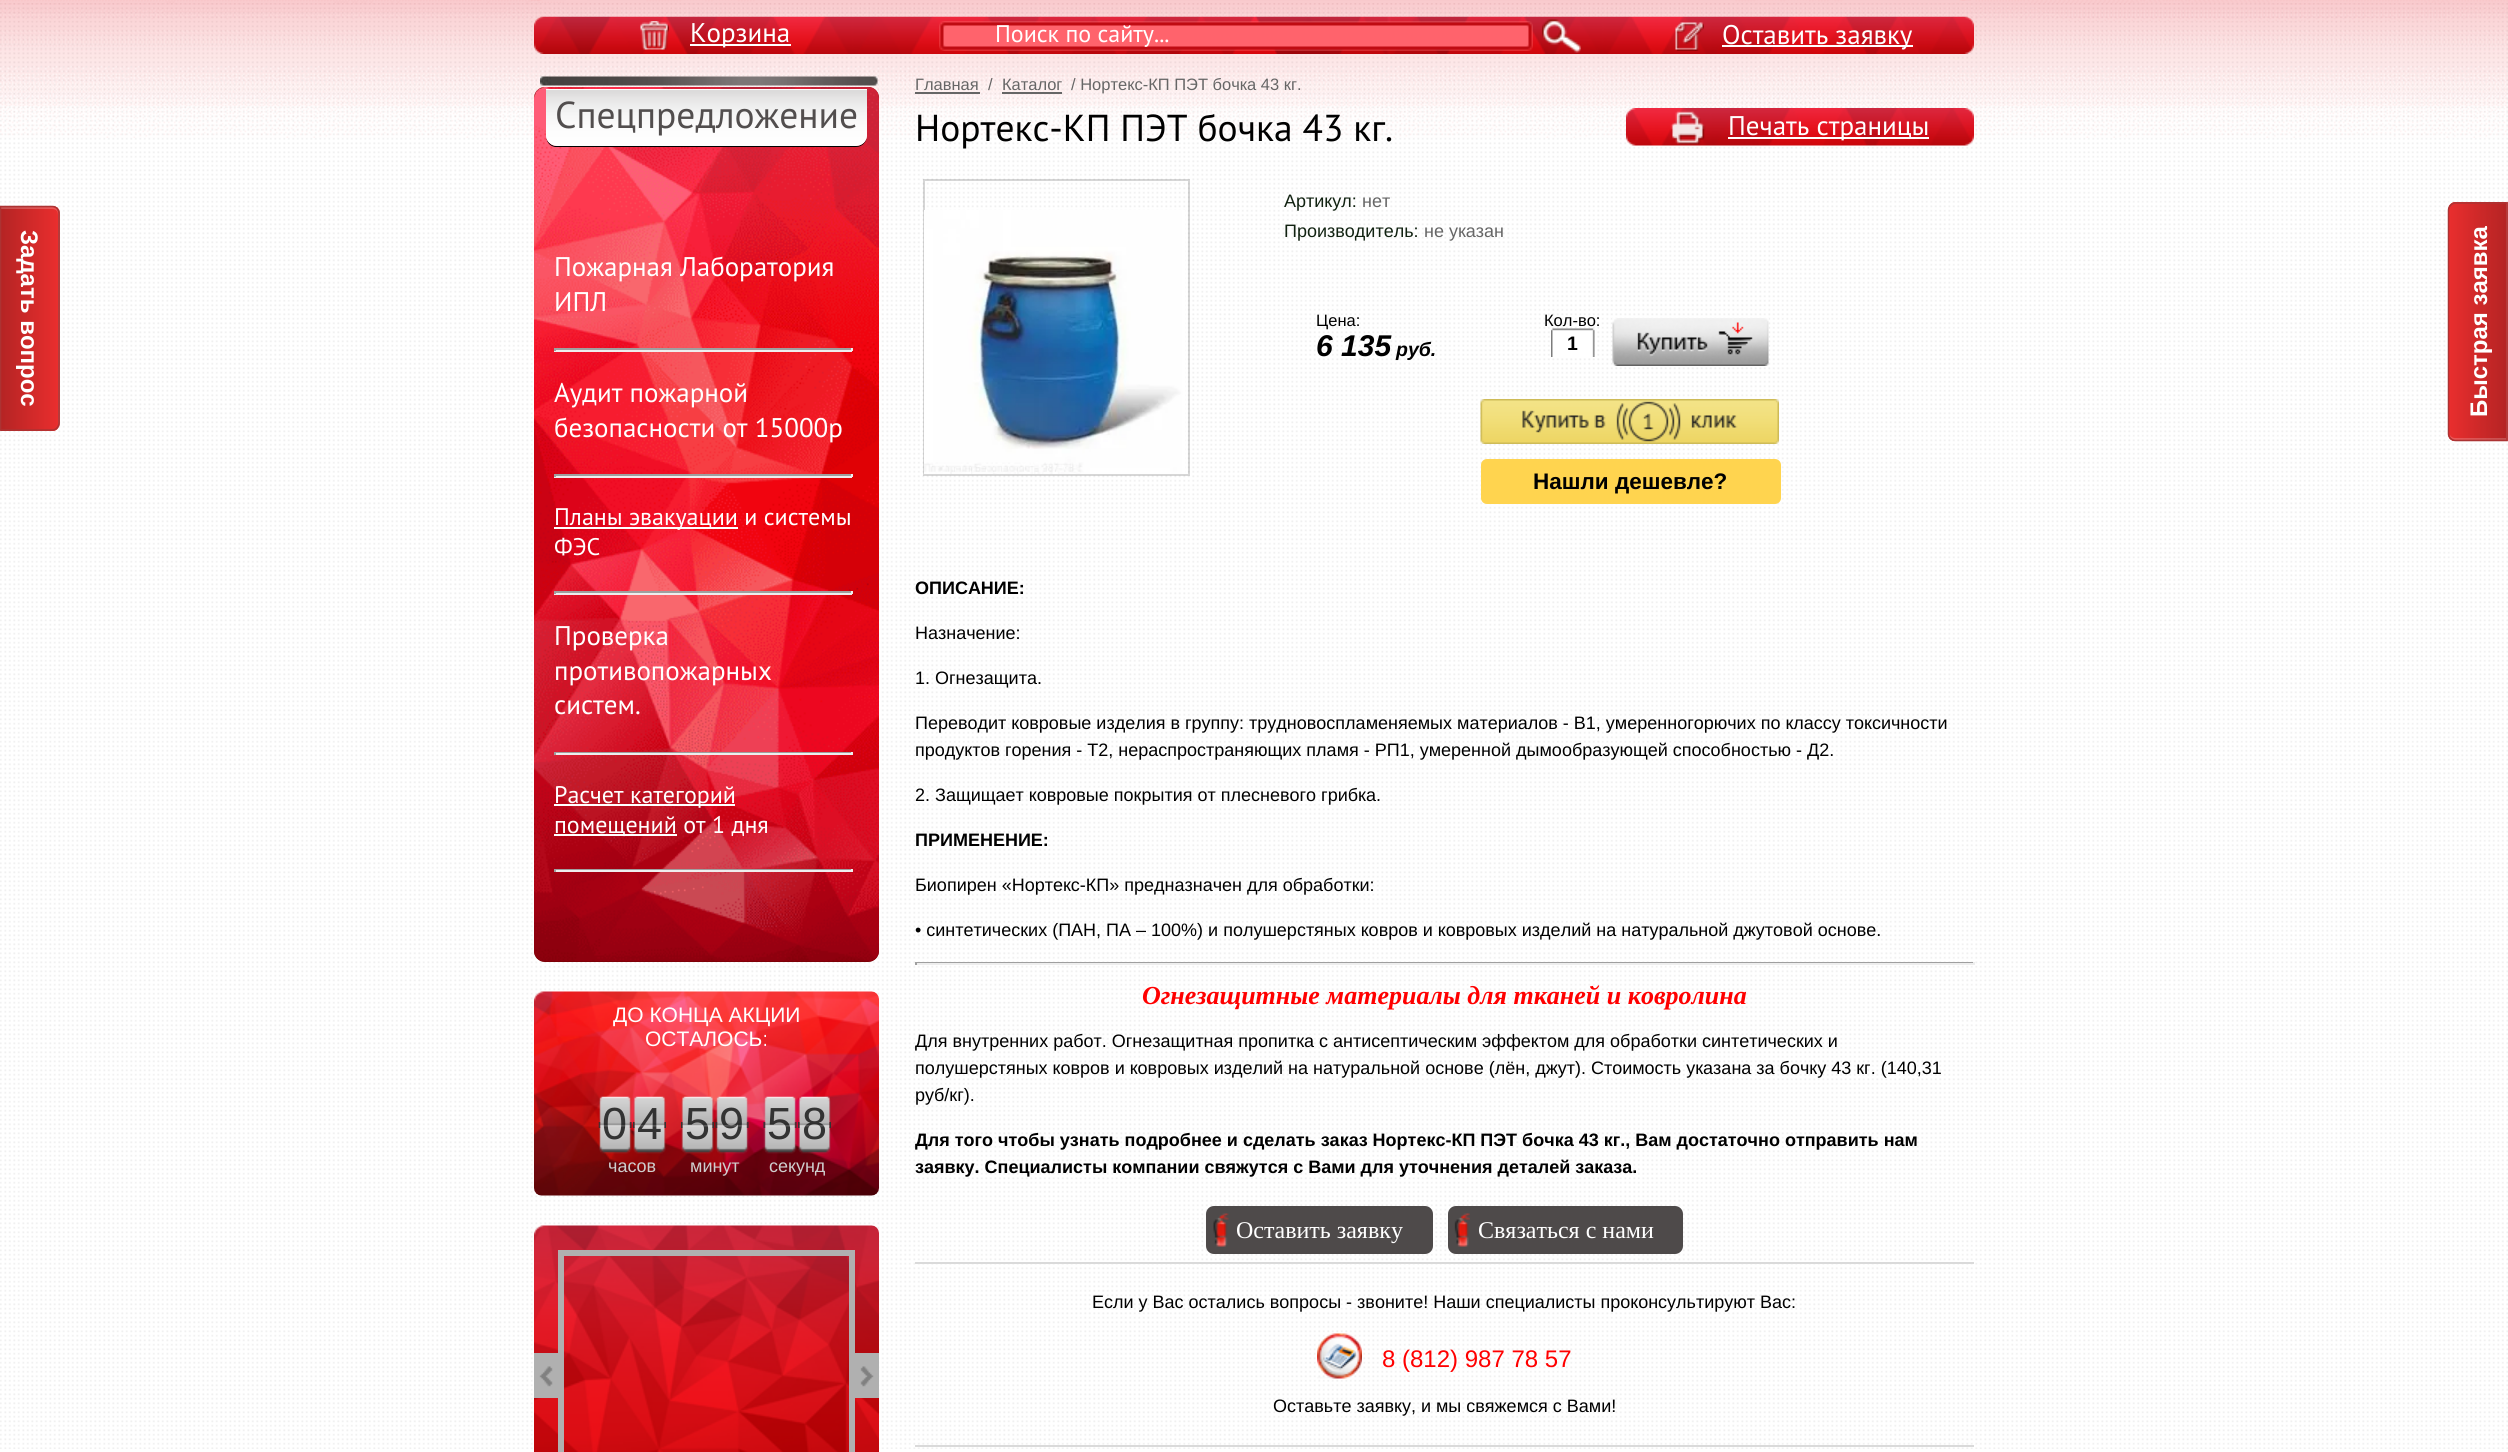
#include <cairo.h>
#include <math.h>
#include <stddef.h>

typedef struct { double x, y; const char *s; } line_t;
typedef struct { double x, y, w, h; unsigned color; } box_t;

static void ink(cairo_t *ctx, unsigned color) {
    cairo_set_source_rgb(ctx, (color >> 16) / 255.0, (color >> 8 & 255) / 255.0, (color & 255) / 255.0);
}

static void round_path(cairo_t *ctx, double x, double y, double w, double h, double r) {
    cairo_new_sub_path(ctx);
    cairo_arc(ctx, x + w - r, y + h - r, r, 0, M_PI / 2);
    cairo_arc(ctx, x + r, y + h - r, r, M_PI / 2, M_PI);
    cairo_arc(ctx, x + r, y + r, r, M_PI, 1.5 * M_PI);
    cairo_arc(ctx, x + w - r, y + r, r, 1.5 * M_PI, 2 * M_PI);
    cairo_close_path(ctx);
}

static void paste(cairo_t *ctx, const char *path, double x, double y, double w, double h) {
    cairo_surface_t *image = cairo_image_surface_create_from_png(path);
    cairo_save(ctx);
    cairo_set_source_surface(ctx, image, x, y);
    cairo_rectangle(ctx, x, y, w, h);
    cairo_fill(ctx);
    cairo_restore(ctx);
    cairo_surface_destroy(image);
}

int main(void) {
    cairo_surface_t *surface = cairo_image_surface_create(CAIRO_FORMAT_RGB24, 2508, 1452);
    cairo_t *ctx = cairo_create(surface);
    cairo_font_options_t *options = cairo_font_options_create();
    cairo_font_options_set_hint_metrics(options, CAIRO_HINT_METRICS_OFF);
    cairo_font_options_set_hint_style(options, CAIRO_HINT_STYLE_NONE);
    cairo_set_font_options(ctx, options);
    cairo_set_miter_limit(ctx, 4);
    cairo_pattern_t *gradient;
    ink(ctx, 0xFFFFFF);
    cairo_paint(ctx);
    paste(ctx, "media/1.png", 0, 3, 2508, 1446);
    ink(ctx, 0xD15252);
    cairo_new_path(ctx);
    cairo_move_to(ctx, 60, 213);
    cairo_line_to(ctx, 60, 423);
    cairo_curve_to(ctx, 60, 427, 57, 431, 52, 431);
    cairo_line_to(ctx, 0, 431);
    cairo_line_to(ctx, 0, 206);
    cairo_line_to(ctx, 52, 206);
    cairo_curve_to(ctx, 57, 206, 60, 209, 60, 213);
    cairo_close_path(ctx);
    cairo_fill(ctx);
    gradient = cairo_pattern_create_linear(58, 318, 1.5, 318);
    cairo_pattern_add_color_stop_rgba(gradient, 0, 0.914, 0.18, 0.18, 1);
    cairo_pattern_add_color_stop_rgba(gradient, 1, 0.71, 0.141, 0.141, 1);
    cairo_set_source(ctx, gradient);
    cairo_pattern_destroy(gradient);
    cairo_new_path(ctx);
    cairo_move_to(ctx, 1, 206);
    cairo_line_to(ctx, 54, 206);
    cairo_line_to(ctx, 58, 208);
    cairo_line_to(ctx, 58, 428);
    cairo_curve_to(ctx, 57, 430, 55, 431, 52, 431);
    cairo_line_to(ctx, 1, 431);
    cairo_close_path(ctx);
    cairo_fill(ctx);
    cairo_set_source_rgba(ctx, 1, 1, 1, 0.2);
    cairo_new_path(ctx);
    cairo_move_to(ctx, 58, 215);
    cairo_line_to(ctx, 58, 425);
    cairo_line_to(ctx, 58, 423);
    cairo_line_to(ctx, 58, 213);
    cairo_curve_to(ctx, 58, 210, 56, 207, 52, 207);
    cairo_line_to(ctx, 1, 207);
    cairo_line_to(ctx, 1, 209);
    cairo_line_to(ctx, 52, 209);
    cairo_curve_to(ctx, 56, 209, 58, 211, 58, 215);
    cairo_close_path(ctx);
    cairo_fill(ctx);
    cairo_new_path(ctx);
    cairo_move_to(ctx, 59, 213.5);
    cairo_line_to(ctx, 59, 423);
    cairo_curve_to(ctx, 59, 426.5, 56, 430, 52.5, 430);
    cairo_line_to(ctx, 0.5, 430);
    cairo_line_to(ctx, 0.5, 206.5);
    cairo_line_to(ctx, 52.5, 206.5);
    cairo_curve_to(ctx, 56, 206.5, 59, 209.5, 59, 213.5);
    cairo_close_path(ctx);
    ink(ctx, 0xAC3333);
    cairo_set_line_width(ctx, 1.5);
    cairo_stroke(ctx);
    cairo_select_font_face(ctx, "Liberation Sans", CAIRO_FONT_SLANT_NORMAL, CAIRO_FONT_WEIGHT_BOLD);
    cairo_set_font_size(ctx, 24);
    ink(ctx, 0xFFFFFF);
    cairo_save(ctx);
    cairo_translate(ctx, 21, 230);
    cairo_rotate(ctx, 90 * M_PI / 180);
    cairo_move_to(ctx, 0, 0);
    cairo_show_text(ctx, "Задать вопрос");
    cairo_restore(ctx);
    paste(ctx, "media/2.png", 0, 0, 2508, 106);
    paste(ctx, "media/3.png", 0, 0, 2508, 138);
    paste(ctx, "media/4.png", 534, 16, 1440, 38);
    paste(ctx, "media/5.png", 640, 21, 29, 29);
    cairo_rectangle(ctx, 690, 44, 101, 2);
    cairo_fill(ctx);
    cairo_select_font_face(ctx, "PT Sans", CAIRO_FONT_SLANT_NORMAL, CAIRO_FONT_WEIGHT_NORMAL);
    cairo_set_font_size(ctx, 27);
    cairo_move_to(ctx, 690, 42);
    cairo_show_text(ctx, "Корзина");
    paste(ctx, "media/6.png", 939, 21, 594, 30);
    cairo_set_font_size(ctx, 24);
    cairo_move_to(ctx, 995, 42);
    cairo_show_text(ctx, "Поиск по сайту...");
    paste(ctx, "media/7.png", 1542, 19, 39, 34);
    paste(ctx, "media/8.png", 1675, 22, 29, 29);
    cairo_rectangle(ctx, 1722, 45, 191, 2);
    cairo_fill(ctx);
    cairo_set_font_size(ctx, 27);
    cairo_move_to(ctx, 1722, 44);
    cairo_show_text(ctx, "Оставить заявку");
    paste(ctx, "media/9.png", 540, 76, 338, 10);
    ink(ctx, 0x710001);
    round_path(ctx, 534, 87, 345, 875, 11);
    cairo_fill(ctx);
    paste(ctx, "media/10.png", 533, 87, 347, 875);
    ink(ctx, 0x000000);
    cairo_new_path(ctx);
    cairo_move_to(ctx, 546, 135);
    cairo_curve_to(ctx, 546, 141, 549, 146, 555, 147);
    cairo_line_to(ctx, 856, 147);
    cairo_curve_to(ctx, 863, 147, 867, 141, 867, 135);
    cairo_curve_to(ctx, 867, 141, 862, 146, 856, 146);
    cairo_line_to(ctx, 556, 146);
    cairo_curve_to(ctx, 551, 146, 546, 141, 546, 135);
    cairo_close_path(ctx);
    cairo_fill(ctx);
    ink(ctx, 0xFEFEFE);
    cairo_new_path(ctx);
    cairo_move_to(ctx, 546, 89);
    cairo_line_to(ctx, 867, 89);
    cairo_line_to(ctx, 867, 135);
    cairo_curve_to(ctx, 867, 141, 862, 146, 856, 146);
    cairo_line_to(ctx, 557, 146);
    cairo_curve_to(ctx, 551, 146, 546, 141, 546, 135);
    cairo_close_path(ctx);
    cairo_fill(ctx);
    paste(ctx, "media/11.png", 546, 90, 321, 56);
    cairo_set_font_size(ctx, 37.5);
    ink(ctx, 0x524E4E);
    cairo_move_to(ctx, 555, 128);
    cairo_show_text(ctx, "Спецпредложение");
    cairo_set_font_size(ctx, 27);
    ink(ctx, 0xFFFFFF);
    cairo_move_to(ctx, 554, 276);
    cairo_show_text(ctx, "Пожарная Лаборатория");
    cairo_move_to(ctx, 554, 311);
    cairo_show_text(ctx, "ИПЛ");
    {
        static const box_t items[] = {
            {554, 348, 298, 2, 0x9F9F9F},
            {851, 348, 2, 3, 0xEEEEEE},
            {554, 350, 298, 2, 0xEEEEEE},
            {554, 348, 2, 3, 0x9F9F9F},
        };
        for (size_t i = 0; i < sizeof items / sizeof *items; i++) {
            ink(ctx, items[i].color);
            cairo_rectangle(ctx, items[i].x, items[i].y, items[i].w, items[i].h);
            cairo_fill(ctx);
        }
    }
    ink(ctx, 0xFFFFFF);
    cairo_move_to(ctx, 554, 402);
    cairo_show_text(ctx, "Аудит пожарной");
    cairo_move_to(ctx, 554, 437);
    cairo_show_text(ctx, "безопасности от 15000р");
    {
        static const box_t items[] = {
            {554, 474, 298, 2, 0x9F9F9F},
            {851, 474, 2, 3, 0xEEEEEE},
            {554, 476, 298, 2, 0xEEEEEE},
            {554, 474, 2, 3, 0x9F9F9F},
            {554, 527, 184, 2, 0xFFFFFF},
        };
        for (size_t i = 0; i < sizeof items / sizeof *items; i++) {
            ink(ctx, items[i].color);
            cairo_rectangle(ctx, items[i].x, items[i].y, items[i].w, items[i].h);
            cairo_fill(ctx);
        }
    }
    cairo_set_font_size(ctx, 24);
    cairo_move_to(ctx, 554, 525);
    cairo_show_text(ctx, "Планы эвакуации и системы");
    cairo_move_to(ctx, 554, 555);
    cairo_show_text(ctx, "ФЭС");
    {
        static const box_t items[] = {
            {554, 591, 298, 2, 0x9F9F9F},
            {851, 591, 2, 3, 0xEEEEEE},
            {554, 593, 298, 2, 0xEEEEEE},
            {554, 591, 2, 3, 0x9F9F9F},
        };
        for (size_t i = 0; i < sizeof items / sizeof *items; i++) {
            ink(ctx, items[i].color);
            cairo_rectangle(ctx, items[i].x, items[i].y, items[i].w, items[i].h);
            cairo_fill(ctx);
        }
    }
    cairo_set_font_size(ctx, 27);
    ink(ctx, 0xFFFFFF);
    {
        static const line_t items[] = {
            {554, 645, "Проверка"},
            {554, 680, "противопожарных"},
            {554, 714, "систем."},
        };
        for (size_t i = 0; i < sizeof items / sizeof *items; i++) {
            cairo_move_to(ctx, items[i].x, items[i].y);
            cairo_show_text(ctx, items[i].s);
        }
    }
    {
        static const box_t items[] = {
            {554, 752, 298, 1, 0x9F9F9F},
            {851, 752, 2, 3, 0xEEEEEE},
            {554, 753, 298, 2, 0xEEEEEE},
            {554, 752, 2, 3, 0x9F9F9F},
            {554, 804, 181, 2, 0xFFFFFF},
        };
        for (size_t i = 0; i < sizeof items / sizeof *items; i++) {
            ink(ctx, items[i].color);
            cairo_rectangle(ctx, items[i].x, items[i].y, items[i].w, items[i].h);
            cairo_fill(ctx);
        }
    }
    cairo_set_font_size(ctx, 24);
    cairo_move_to(ctx, 554, 803);
    cairo_show_text(ctx, "Расчет категорий");
    cairo_rectangle(ctx, 554, 834, 123, 2);
    cairo_fill(ctx);
    cairo_move_to(ctx, 554, 833);
    cairo_show_text(ctx, "помещений от 1 дня");
    {
        static const box_t items[] = {
            {554, 869, 298, 1, 0x9F9F9F},
            {851, 869, 2, 3, 0xEEEEEE},
            {554, 870, 298, 2, 0xEEEEEE},
            {554, 869, 2, 3, 0x9F9F9F},
        };
        for (size_t i = 0; i < sizeof items / sizeof *items; i++) {
            ink(ctx, items[i].color);
            cairo_rectangle(ctx, items[i].x, items[i].y, items[i].w, items[i].h);
            cairo_fill(ctx);
        }
    }
    paste(ctx, "media/12.png", 534, 991, 345, 205);
    cairo_select_font_face(ctx, "Liberation Sans", CAIRO_FONT_SLANT_NORMAL, CAIRO_FONT_WEIGHT_NORMAL);
    cairo_set_font_size(ctx, 21);
    ink(ctx, 0xFFFFFF);
    cairo_move_to(ctx, 613, 1022);
    cairo_show_text(ctx, "ДО КОНЦА АКЦИИ");
    cairo_move_to(ctx, 645, 1046);
    cairo_show_text(ctx, "ОСТАЛОСЬ:");
    paste(ctx, "media/13.png", 599, 1096, 33, 58);
    cairo_set_font_size(ctx, 45);
    ink(ctx, 0x333333);
    cairo_move_to(ctx, 602, 1139);
    cairo_show_text(ctx, "0");
    paste(ctx, "media/14.png", 598, 1122, 34, 6);
    paste(ctx, "media/15.png", 633, 1096, 33, 58);
    cairo_move_to(ctx, 637, 1139);
    cairo_show_text(ctx, "4");
    paste(ctx, "media/16.png", 633, 1122, 33, 6);
    cairo_set_font_size(ctx, 18);
    ink(ctx, 0xCECECE);
    cairo_move_to(ctx, 608, 1172);
    cairo_show_text(ctx, "часов");
    paste(ctx, "media/17.png", 681, 1096, 33, 58);
    cairo_set_font_size(ctx, 45);
    ink(ctx, 0x333333);
    cairo_move_to(ctx, 685, 1139);
    cairo_show_text(ctx, "5");
    paste(ctx, "media/18.png", 681, 1122, 33, 6);
    paste(ctx, "media/19.png", 715, 1096, 34, 58);
    cairo_move_to(ctx, 719, 1139);
    cairo_show_text(ctx, "9");
    paste(ctx, "media/20.png", 715, 1122, 34, 6);
    cairo_set_font_size(ctx, 18);
    ink(ctx, 0xCECECE);
    cairo_move_to(ctx, 690, 1172);
    cairo_show_text(ctx, "минут");
    paste(ctx, "media/21.png", 763, 1096, 34, 58);
    cairo_set_font_size(ctx, 45);
    ink(ctx, 0x333333);
    cairo_move_to(ctx, 767, 1139);
    cairo_show_text(ctx, "5");
    paste(ctx, "media/22.png", 763, 1122, 34, 6);
    paste(ctx, "media/23.png", 798, 1096, 33, 58);
    cairo_move_to(ctx, 802, 1139);
    cairo_show_text(ctx, "8");
    paste(ctx, "media/24.png", 798, 1122, 33, 6);
    cairo_set_font_size(ctx, 18);
    ink(ctx, 0xCECECE);
    cairo_move_to(ctx, 769, 1172);
    cairo_show_text(ctx, "секунд");
    paste(ctx, "media/25.png", 534, 1225, 345, 227);
    paste(ctx, "media/26.png", 534, 1353, 24, 45);
    cairo_rectangle(ctx, 561, 1253, 291, 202);
    ink(ctx, 0xB0B0B0);
    cairo_set_line_width(ctx, 6);
    cairo_stroke(ctx);
    paste(ctx, "media/27.png", 855, 1353, 24, 45);
    cairo_set_font_size(ctx, 16.5);
    ink(ctx, 0x666666);
    cairo_move_to(ctx, 915, 90);
    cairo_show_text(ctx, "Главная");
    cairo_rectangle(ctx, 915, 92, 65, 2);
    cairo_fill(ctx);
    cairo_move_to(ctx, 988, 90);
    cairo_show_text(ctx, "/");
    cairo_move_to(ctx, 1002, 90);
    cairo_show_text(ctx, "Каталог");
    cairo_rectangle(ctx, 1002, 92, 60, 2);
    cairo_fill(ctx);
    cairo_move_to(ctx, 1071, 90);
    cairo_show_text(ctx, "/ Нортекс-КП ПЭТ бочка 43 кг.");
    cairo_select_font_face(ctx, "PT Sans", CAIRO_FONT_SLANT_NORMAL, CAIRO_FONT_WEIGHT_NORMAL);
    cairo_set_font_size(ctx, 37.5);
    ink(ctx, 0x000000);
    cairo_move_to(ctx, 915, 141);
    cairo_show_text(ctx, "Нортекс-КП ПЭТ бочка 43 кг.");
    cairo_rectangle(ctx, 924, 180, 265, 295);
    cairo_set_source_rgba(ctx, 0, 0, 0, 0.16);
    cairo_set_line_width(ctx, 2);
    cairo_stroke(ctx);
    paste(ctx, "media/28.png", 924, 210, 261, 264);
    cairo_select_font_face(ctx, "Liberation Sans", CAIRO_FONT_SLANT_NORMAL, CAIRO_FONT_WEIGHT_NORMAL);
    cairo_set_font_size(ctx, 18);
    ink(ctx, 0x112211);
    cairo_move_to(ctx, 1284, 207);
    cairo_show_text(ctx, "Артикул:");
    ink(ctx, 0x666666);
    cairo_move_to(ctx, 1362, 207);
    cairo_show_text(ctx, "нет");
    ink(ctx, 0x112211);
    cairo_move_to(ctx, 1284, 237);
    cairo_show_text(ctx, "Производитель:");
    ink(ctx, 0x666666);
    cairo_move_to(ctx, 1424, 237);
    cairo_show_text(ctx, "не указан");
    cairo_set_font_size(ctx, 16.5);
    ink(ctx, 0x000000);
    cairo_move_to(ctx, 1316, 326);
    cairo_show_text(ctx, "Цена:");
    cairo_select_font_face(ctx, "Liberation Sans", CAIRO_FONT_SLANT_ITALIC, CAIRO_FONT_WEIGHT_BOLD);
    cairo_set_font_size(ctx, 30);
    cairo_move_to(ctx, 1316, 356);
    cairo_show_text(ctx, "6 135");
    cairo_set_font_size(ctx, 19.5);
    cairo_move_to(ctx, 1396, 356);
    cairo_show_text(ctx, "руб.");
    cairo_select_font_face(ctx, "Liberation Sans", CAIRO_FONT_SLANT_NORMAL, CAIRO_FONT_WEIGHT_NORMAL);
    cairo_set_font_size(ctx, 16.5);
    cairo_move_to(ctx, 1544, 326);
    cairo_show_text(ctx, "Кол-во:");
    paste(ctx, "media/29.png", 1551, 328, 44, 29);
    cairo_select_font_face(ctx, "Liberation Sans", CAIRO_FONT_SLANT_NORMAL, CAIRO_FONT_WEIGHT_BOLD);
    cairo_set_font_size(ctx, 19.5);
    cairo_move_to(ctx, 1567, 350);
    cairo_show_text(ctx, "1");
    paste(ctx, "media/30.png", 1612, 318, 157, 48);
    paste(ctx, "media/31.png", 1480, 399, 299, 45);
    ink(ctx, 0xFFD44F);
    round_path(ctx, 1481, 459, 300, 45, 6);
    cairo_fill(ctx);
    cairo_set_font_size(ctx, 22.5);
    ink(ctx, 0x000000);
    cairo_move_to(ctx, 1533, 489);
    cairo_show_text(ctx, "Нашли дешевле?");
    cairo_set_font_size(ctx, 18);
    cairo_move_to(ctx, 915, 594);
    cairo_show_text(ctx, "ОПИСАНИЕ:");
    cairo_select_font_face(ctx, "Liberation Sans", CAIRO_FONT_SLANT_NORMAL, CAIRO_FONT_WEIGHT_NORMAL);
    {
        static const line_t items[] = {
            {915, 639, "Назначение:"},
            {915, 684, "1. Огнезащита."},
            {915, 729, "Переводит ковровые изделия в группу: трудновоспламеняемых материалов - В1, умеренногорючих по классу токсичности"},
            {915, 756, "продуктов горения - Т2, нераспространяющих пламя - РП1, умеренной дымообразующей способностью - Д2."},
            {915, 801, "2. Защищает ковровые покрытия от плесневого грибка."},
        };
        for (size_t i = 0; i < sizeof items / sizeof *items; i++) {
            cairo_move_to(ctx, items[i].x, items[i].y);
            cairo_show_text(ctx, items[i].s);
        }
    }
    cairo_select_font_face(ctx, "Liberation Sans", CAIRO_FONT_SLANT_NORMAL, CAIRO_FONT_WEIGHT_BOLD);
    cairo_move_to(ctx, 915, 846);
    cairo_show_text(ctx, "ПРИМЕНЕНИЕ:");
    cairo_select_font_face(ctx, "Liberation Sans", CAIRO_FONT_SLANT_NORMAL, CAIRO_FONT_WEIGHT_NORMAL);
    cairo_move_to(ctx, 915, 891);
    cairo_show_text(ctx, "Биопирен «Нортекс-КП» предназначен для обработки:");
    cairo_move_to(ctx, 915, 936);
    cairo_show_text(ctx, "• синтетических (ПАН, ПА – 100%) и полушерстяных ковров и ковровых изделий на натуральной джутовой основе.");
    {
        static const box_t items[] = {
            {915, 962, 1059, 1, 0x9F9F9F},
            {1973, 962, 2, 3, 0xEEEEEE},
            {915, 963, 1059, 2, 0xEEEEEE},
            {915, 962, 2, 3, 0x9F9F9F},
        };
        for (size_t i = 0; i < sizeof items / sizeof *items; i++) {
            ink(ctx, items[i].color);
            cairo_rectangle(ctx, items[i].x, items[i].y, items[i].w, items[i].h);
            cairo_fill(ctx);
        }
    }
    cairo_select_font_face(ctx, "Liberation Serif", CAIRO_FONT_SLANT_ITALIC, CAIRO_FONT_WEIGHT_BOLD);
    cairo_set_font_size(ctx, 26);
    ink(ctx, 0xFF0000);
    cairo_move_to(ctx, 1142, 1004);
    cairo_show_text(ctx, "Огнезащитные материалы для тканей и ковролина");
    cairo_select_font_face(ctx, "Liberation Sans", CAIRO_FONT_SLANT_NORMAL, CAIRO_FONT_WEIGHT_NORMAL);
    cairo_set_font_size(ctx, 18);
    ink(ctx, 0x000000);
    {
        static const line_t items[] = {
            {915, 1047, "Для внутренних работ. Огнезащитная пропитка с антисептическим эффектом для обработки синтетических и"},
            {915, 1074, "полушерстяных ковров и ковровых изделий на натуральной основе (лён, джут). Стоимость указана за бочку 43 кг. (140,31"},
            {915, 1101, "руб/кг)."},
        };
        for (size_t i = 0; i < sizeof items / sizeof *items; i++) {
            cairo_move_to(ctx, items[i].x, items[i].y);
            cairo_show_text(ctx, items[i].s);
        }
    }
    cairo_select_font_face(ctx, "Liberation Sans", CAIRO_FONT_SLANT_NORMAL, CAIRO_FONT_WEIGHT_BOLD);
    cairo_move_to(ctx, 915, 1146);
    cairo_show_text(ctx, "Для того чтобы узнать подробнее и сделать заказ Нортекс-КП ПЭТ бочка 43 кг., Вам достаточно отправить нам");
    cairo_move_to(ctx, 915, 1173);
    cairo_show_text(ctx, "заявку. Специалисты компании свяжутся с Вами для уточнения деталей заказа.");
    ink(ctx, 0x4E4A4A);
    round_path(ctx, 1206, 1206, 227, 48, 8);
    cairo_fill(ctx);
    paste(ctx, "media/32.png", 1213, 1213, 16, 34);
    cairo_select_font_face(ctx, "Liberation Serif", CAIRO_FONT_SLANT_NORMAL, CAIRO_FONT_WEIGHT_NORMAL);
    cairo_set_font_size(ctx, 24);
    ink(ctx, 0xFFFFFF);
    cairo_move_to(ctx, 1236, 1238);
    cairo_show_text(ctx, "Оставить заявку");
    ink(ctx, 0x4E4A4A);
    round_path(ctx, 1448, 1206, 235, 48, 8);
    cairo_fill(ctx);
    paste(ctx, "media/33.png", 1454, 1213, 16, 34);
    ink(ctx, 0xFFFFFF);
    cairo_move_to(ctx, 1478, 1238);
    cairo_show_text(ctx, "Связаться с нами");
    ink(ctx, 0xDADADA);
    cairo_rectangle(ctx, 915, 1262, 1059, 2);
    cairo_fill(ctx);
    cairo_rectangle(ctx, 915, 1445, 1059, 2);
    cairo_fill(ctx);
    cairo_select_font_face(ctx, "Liberation Sans", CAIRO_FONT_SLANT_NORMAL, CAIRO_FONT_WEIGHT_NORMAL);
    cairo_set_font_size(ctx, 18);
    ink(ctx, 0x000000);
    cairo_move_to(ctx, 1092, 1308);
    cairo_show_text(ctx, "Если у Вас остались вопросы - звоните! Наши специалисты проконсультируют Вас:");
    paste(ctx, "media/34.png", 1317, 1333, 45, 46);
    cairo_set_font_size(ctx, 24);
    ink(ctx, 0xFF0000);
    cairo_move_to(ctx, 1382, 1367);
    cairo_show_text(ctx, "8 (812) 987 78 57");
    cairo_set_font_size(ctx, 18);
    ink(ctx, 0x000000);
    cairo_move_to(ctx, 1273, 1412);
    cairo_show_text(ctx, "Оставьте заявку, и мы свяжемся с Вами!");
    paste(ctx, "media/35.png", 1626, 108, 348, 38);
    ink(ctx, 0xFFFFFF);
    cairo_rectangle(ctx, 1728, 137, 201, 2);
    cairo_fill(ctx);
    cairo_select_font_face(ctx, "PT Sans", CAIRO_FONT_SLANT_NORMAL, CAIRO_FONT_WEIGHT_NORMAL);
    cairo_set_font_size(ctx, 27);
    cairo_move_to(ctx, 1728, 135);
    cairo_show_text(ctx, "Печать страницы");
    ink(ctx, 0xD15252);
    cairo_new_path(ctx);
    cairo_move_to(ctx, 2448, 434);
    cairo_line_to(ctx, 2448, 210);
    cairo_curve_to(ctx, 2448, 206, 2451, 202, 2455, 202);
    cairo_line_to(ctx, 2508, 202);
    cairo_line_to(ctx, 2508, 441);
    cairo_line_to(ctx, 2455, 441);
    cairo_curve_to(ctx, 2451, 441, 2448, 438, 2448, 434);
    cairo_close_path(ctx);
    cairo_fill(ctx);
    gradient = cairo_pattern_create_linear(2449, 322, 2506, 322);
    cairo_pattern_add_color_stop_rgba(gradient, 0, 0.914, 0.18, 0.18, 1);
    cairo_pattern_add_color_stop_rgba(gradient, 1, 0.71, 0.141, 0.141, 1);
    cairo_set_source(ctx, gradient);
    cairo_pattern_destroy(gradient);
    cairo_new_path(ctx);
    cairo_move_to(ctx, 2449, 438);
    cairo_line_to(ctx, 2449, 206);
    cairo_curve_to(ctx, 2450, 204, 2453, 202, 2455, 202);
    cairo_line_to(ctx, 2506, 202);
    cairo_line_to(ctx, 2506, 441);
    cairo_line_to(ctx, 2453, 441);
    cairo_curve_to(ctx, 2451, 440, 2450, 439, 2449, 438);
    cairo_close_path(ctx);
    cairo_fill(ctx);
    cairo_set_source_rgba(ctx, 1, 1, 1, 0.2);
    cairo_new_path(ctx);
    cairo_move_to(ctx, 2450, 435);
    cairo_curve_to(ctx, 2450, 438, 2452, 440, 2455, 440);
    cairo_line_to(ctx, 2506, 440);
    cairo_line_to(ctx, 2506, 204);
    cairo_line_to(ctx, 2506, 438);
    cairo_line_to(ctx, 2455, 438);
    cairo_curve_to(ctx, 2453, 438, 2451, 437, 2450, 435);
    cairo_close_path(ctx);
    cairo_fill(ctx);
    cairo_new_path(ctx);
    cairo_move_to(ctx, 2448.5, 434);
    cairo_line_to(ctx, 2448.5, 210);
    cairo_curve_to(ctx, 2448.5, 206.5, 2452, 203, 2455.5, 203);
    cairo_line_to(ctx, 2507, 203);
    cairo_line_to(ctx, 2507, 440.5);
    cairo_line_to(ctx, 2455.5, 440.5);
    cairo_curve_to(ctx, 2452, 440.5, 2448.5, 437.5, 2448.5, 434);
    cairo_close_path(ctx);
    ink(ctx, 0xAC3333);
    cairo_set_line_width(ctx, 1.5);
    cairo_stroke(ctx);
    cairo_select_font_face(ctx, "Liberation Sans", CAIRO_FONT_SLANT_NORMAL, CAIRO_FONT_WEIGHT_BOLD);
    cairo_set_font_size(ctx, 24);
    ink(ctx, 0xFFFFFF);
    cairo_save(ctx);
    cairo_translate(ctx, 2487, 417);
    cairo_rotate(ctx, -90 * M_PI / 180);
    cairo_move_to(ctx, 0, 0);
    cairo_show_text(ctx, "Быстрая заявка");
    cairo_restore(ctx);
    cairo_surface_write_to_png(surface, "image.png");
    cairo_font_options_destroy(options);
    cairo_destroy(ctx);
    cairo_surface_destroy(surface);
    return 0;
}
